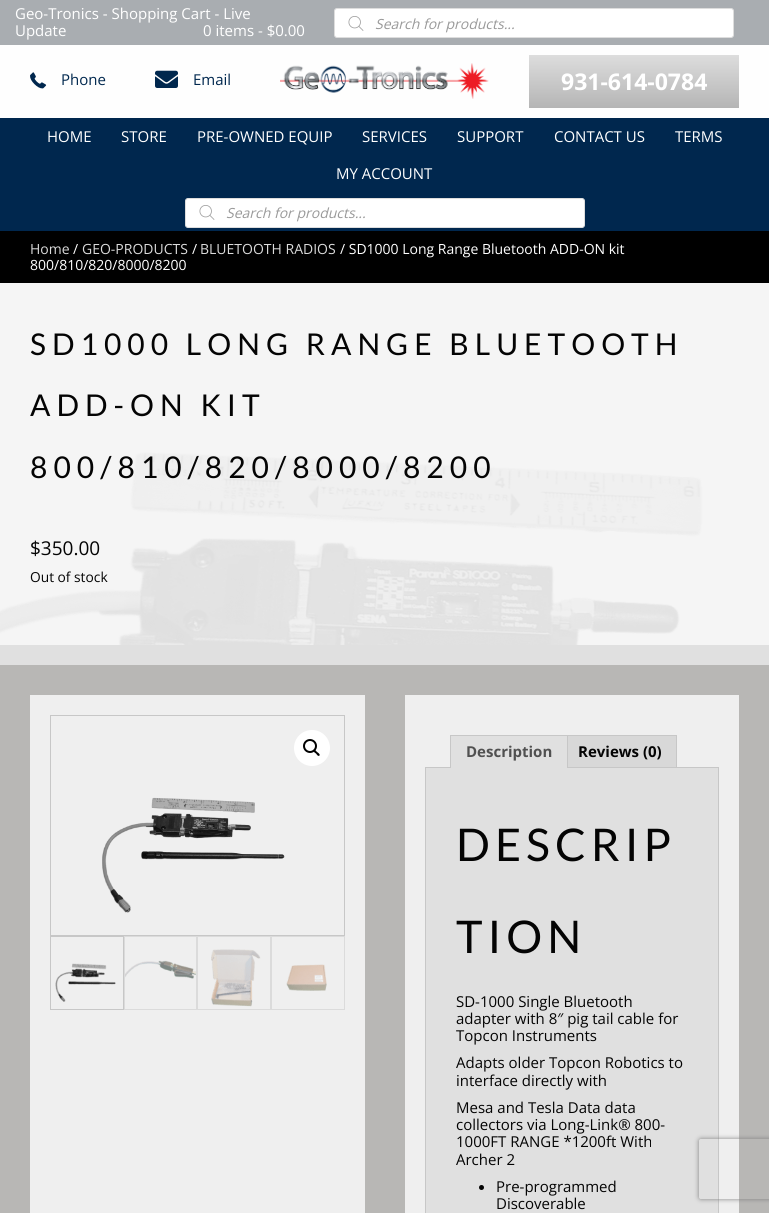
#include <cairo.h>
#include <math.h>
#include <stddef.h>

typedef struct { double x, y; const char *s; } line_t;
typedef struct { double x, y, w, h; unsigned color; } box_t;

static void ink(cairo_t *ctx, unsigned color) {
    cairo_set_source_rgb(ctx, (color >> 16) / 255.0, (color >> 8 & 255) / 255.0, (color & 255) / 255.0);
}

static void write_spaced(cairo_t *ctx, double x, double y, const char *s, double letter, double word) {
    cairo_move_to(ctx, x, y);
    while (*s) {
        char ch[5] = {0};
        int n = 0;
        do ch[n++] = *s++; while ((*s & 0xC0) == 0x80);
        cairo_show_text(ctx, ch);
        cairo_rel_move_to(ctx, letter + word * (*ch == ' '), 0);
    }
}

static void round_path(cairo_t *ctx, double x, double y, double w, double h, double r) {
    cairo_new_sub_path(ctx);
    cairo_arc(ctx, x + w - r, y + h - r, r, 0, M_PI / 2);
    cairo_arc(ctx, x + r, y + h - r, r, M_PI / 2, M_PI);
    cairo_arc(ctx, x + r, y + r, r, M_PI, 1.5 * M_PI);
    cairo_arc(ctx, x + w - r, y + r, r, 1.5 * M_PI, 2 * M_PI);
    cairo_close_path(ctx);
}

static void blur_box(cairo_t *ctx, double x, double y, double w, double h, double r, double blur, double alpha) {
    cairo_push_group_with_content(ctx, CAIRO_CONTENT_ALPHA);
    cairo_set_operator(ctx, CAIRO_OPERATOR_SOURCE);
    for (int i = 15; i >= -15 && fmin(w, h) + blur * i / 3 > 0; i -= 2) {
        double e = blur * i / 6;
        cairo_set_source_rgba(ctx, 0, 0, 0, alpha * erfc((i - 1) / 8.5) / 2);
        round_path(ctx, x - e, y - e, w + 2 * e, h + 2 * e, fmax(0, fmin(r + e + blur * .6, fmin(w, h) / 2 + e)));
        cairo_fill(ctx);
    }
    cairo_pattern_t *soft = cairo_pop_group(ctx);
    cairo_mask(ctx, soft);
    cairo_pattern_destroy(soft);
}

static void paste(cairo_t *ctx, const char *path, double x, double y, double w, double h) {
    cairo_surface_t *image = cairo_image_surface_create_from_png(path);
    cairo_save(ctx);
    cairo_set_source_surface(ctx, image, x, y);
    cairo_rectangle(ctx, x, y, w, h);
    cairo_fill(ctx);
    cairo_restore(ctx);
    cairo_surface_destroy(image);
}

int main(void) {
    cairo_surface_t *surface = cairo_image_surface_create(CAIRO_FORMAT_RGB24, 769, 1213);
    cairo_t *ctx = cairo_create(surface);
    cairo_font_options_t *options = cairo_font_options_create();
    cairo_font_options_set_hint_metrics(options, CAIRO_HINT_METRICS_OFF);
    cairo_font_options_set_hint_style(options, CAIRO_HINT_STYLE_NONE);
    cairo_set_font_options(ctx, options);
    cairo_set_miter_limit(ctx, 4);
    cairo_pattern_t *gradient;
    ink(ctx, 0xE0E0E0);
    cairo_paint(ctx);
    ink(ctx, 0xA9ADB1);
    cairo_rectangle(ctx, 0, 0, 769, 45);
    cairo_fill(ctx);
    cairo_select_font_face(ctx, "Open Sans", CAIRO_FONT_SLANT_NORMAL, CAIRO_FONT_WEIGHT_NORMAL);
    cairo_set_font_size(ctx, 15);
    ink(ctx, 0xFFFFFF);
    {
        static const line_t items[] = {
            {15, 19, "Geo-Tronics - Shopping Cart - Live"},
            {15, 36, "Update"},
            {203, 36, "0 items - $0.00"},
        };
        for (size_t i = 0; i < sizeof items / sizeof *items; i++) {
            cairo_move_to(ctx, items[i].x, items[i].y);
            cairo_show_text(ctx, items[i].s);
        }
    }
    round_path(ctx, 334.5, 8.5, 399, 29, 2.5);
    cairo_fill_preserve(ctx);
    ink(ctx, 0xDDDDDD);
    cairo_set_line_width(ctx, 1);
    cairo_stroke(ctx);
    paste(ctx, "media/1.png", 348, 16, 16, 15);
    cairo_select_font_face(ctx, "Open Sans", CAIRO_FONT_SLANT_ITALIC, CAIRO_FONT_WEIGHT_NORMAL);
    cairo_set_font_size(ctx, 14);
    ink(ctx, 0x999999);
    cairo_move_to(ctx, 375, 29);
    cairo_show_text(ctx, "Search for products...");
    ink(ctx, 0xFEFEFE);
    cairo_rectangle(ctx, 0, 45, 769, 73);
    cairo_fill(ctx);
    paste(ctx, "media/2.png", 30, 72, 17, 17);
    cairo_select_font_face(ctx, "Open Sans", CAIRO_FONT_SLANT_NORMAL, CAIRO_FONT_WEIGHT_NORMAL);
    cairo_set_font_size(ctx, 15);
    ink(ctx, 0x00274E);
    cairo_move_to(ctx, 61, 85);
    cairo_show_text(ctx, "Phone");
    paste(ctx, "media/3.png", 155, 70, 23, 18);
    cairo_move_to(ctx, 193, 85);
    cairo_show_text(ctx, "Email");
    paste(ctx, "media/4.png", 280, 63, 209, 36);
    gradient = cairo_pattern_create_linear(634, 55, 634, 108);
    cairo_pattern_add_color_stop_rgba(gradient, 0, 0.867, 0.867, 0.867, 1);
    cairo_pattern_add_color_stop_rgba(gradient, 1, 0.71, 0.71, 0.71, 1);
    cairo_set_source(ctx, gradient);
    cairo_pattern_destroy(gradient);
    cairo_rectangle(ctx, 529, 55, 210, 53);
    cairo_fill(ctx);
    cairo_select_font_face(ctx, "Open Sans", CAIRO_FONT_SLANT_NORMAL, CAIRO_FONT_WEIGHT_BOLD);
    cairo_set_font_size(ctx, 23);
    ink(ctx, 0xFFFFFF);
    cairo_move_to(ctx, 561, 90);
    cairo_show_text(ctx, "931-614-0784");
    ink(ctx, 0x00274E);
    cairo_rectangle(ctx, 0, 118, 769, 113);
    cairo_fill(ctx);
    cairo_select_font_face(ctx, "Open Sans", CAIRO_FONT_SLANT_NORMAL, CAIRO_FONT_WEIGHT_NORMAL);
    cairo_set_font_size(ctx, 15);
    ink(ctx, 0xFFFFFF);
    {
        static const line_t items[] = {
            {47, 142, "HOME"},
            {121, 142, "STORE"},
            {197, 142, "PRE-OWNED EQUIP"},
            {362, 142, "SERVICES"},
            {457, 142, "SUPPORT"},
            {554, 142, "CONTACT US"},
            {675, 142, "TERMS"},
            {336, 179, "MY ACCOUNT"},
        };
        for (size_t i = 0; i < sizeof items / sizeof *items; i++) {
            cairo_move_to(ctx, items[i].x, items[i].y);
            cairo_show_text(ctx, items[i].s);
        }
    }
    round_path(ctx, 185.5, 198.5, 399, 29, 2.5);
    cairo_fill_preserve(ctx);
    ink(ctx, 0xDDDDDD);
    cairo_stroke(ctx);
    paste(ctx, "media/1.png", 199, 205, 16, 15);
    cairo_select_font_face(ctx, "Open Sans", CAIRO_FONT_SLANT_ITALIC, CAIRO_FONT_WEIGHT_NORMAL);
    cairo_set_font_size(ctx, 14);
    ink(ctx, 0x999999);
    cairo_move_to(ctx, 226, 218);
    cairo_show_text(ctx, "Search for products...");
    ink(ctx, 0xF5F5F5);
    cairo_rectangle(ctx, 0, 283, 769, 362);
    cairo_fill(ctx);
    ink(ctx, 0x000000);
    cairo_rectangle(ctx, 0, 231, 769, 52);
    cairo_fill(ctx);
    cairo_select_font_face(ctx, "Open Sans", CAIRO_FONT_SLANT_NORMAL, CAIRO_FONT_WEIGHT_NORMAL);
    ink(ctx, 0xDBDBDB);
    cairo_move_to(ctx, 30, 254);
    cairo_show_text(ctx, "Home");
    ink(ctx, 0xFFFFFF);
    cairo_move_to(ctx, 73, 254);
    cairo_show_text(ctx, "/");
    ink(ctx, 0xDBDBDB);
    cairo_move_to(ctx, 82, 254);
    cairo_show_text(ctx, "GEO-PRODUCTS");
    ink(ctx, 0xFFFFFF);
    cairo_move_to(ctx, 192, 254);
    cairo_show_text(ctx, "/");
    ink(ctx, 0xDBDBDB);
    cairo_move_to(ctx, 200, 254);
    cairo_show_text(ctx, "BLUETOOTH RADIOS");
    ink(ctx, 0xFFFFFF);
    cairo_move_to(ctx, 340, 254);
    cairo_show_text(ctx, "/ SD1000 Long Range Bluetooth ADD-ON kit");
    cairo_move_to(ctx, 30, 270);
    cairo_show_text(ctx, "800/810/820/8000/8200");
    paste(ctx, "media/5.png", 0, 452, 703, 193);
    cairo_select_font_face(ctx, "Lato", CAIRO_FONT_SLANT_NORMAL, CAIRO_FONT_WEIGHT_NORMAL);
    cairo_set_font_size(ctx, 30);
    ink(ctx, 0x040404);
    {
        static const line_t items[] = {
            {30, 355, "SD1000 LONG RANGE BLUETOOTH"},
            {30, 416, "ADD-ON KIT"},
            {30, 478, "800/810/820/8000/8200"},
        };
        for (size_t i = 0; i < sizeof items / sizeof *items; i++) {
            write_spaced(ctx, items[i].x, items[i].y, items[i].s, 6, 0);
        }
    }
    cairo_select_font_face(ctx, "Open Sans", CAIRO_FONT_SLANT_NORMAL, CAIRO_FONT_WEIGHT_NORMAL);
    cairo_set_font_size(ctx, 19);
    cairo_move_to(ctx, 30, 555);
    cairo_show_text(ctx, "$350.00");
    cairo_set_font_size(ctx, 13.75);
    cairo_move_to(ctx, 30, 582);
    cairo_show_text(ctx, "Out of stock");
    ink(ctx, 0xB8B7B5);
    cairo_rectangle(ctx, 0, 665, 769, 548);
    cairo_fill(ctx);
    ink(ctx, 0xEFEFEF);
    cairo_rectangle(ctx, 30, 695, 335, 518);
    cairo_fill(ctx);
    cairo_rectangle(ctx, 50.5, 715.5, 294, 220);
    ink(ctx, 0xC7C7C7);
    cairo_stroke(ctx);
    paste(ctx, "media/6.png", 102, 797, 183, 116);
    ink(ctx, 0xFFFFFF);
    cairo_arc(ctx, 312, 748, 18, 0, 2 * M_PI);
    cairo_fill(ctx);
    cairo_arc(ctx, 310, 746, 6, 0, 2 * M_PI);
    ink(ctx, 0x000000);
    cairo_set_line_width(ctx, 2);
    cairo_stroke(ctx);
    cairo_new_path(ctx);
    cairo_move_to(ctx, 313.5, 750);
    cairo_curve_to(ctx, 315, 749, 316.5, 751.5, 317, 752);
    cairo_curve_to(ctx, 318, 752.5, 320.5, 754.5, 319.5, 755.5);
    cairo_curve_to(ctx, 318, 757, 316.5, 754, 316, 753.5);
    cairo_curve_to(ctx, 315, 753, 312.5, 751, 313.5, 750);
    cairo_close_path(ctx);
    cairo_fill(ctx);
    cairo_rectangle(ctx, 50.5, 936.5, 73, 73);
    ink(ctx, 0xC7C7C7);
    cairo_set_line_width(ctx, 1);
    cairo_stroke(ctx);
    paste(ctx, "media/7.png", 55, 963, 61, 39);
    cairo_rectangle(ctx, 124.5, 936.5, 72, 73);
    ink(ctx, 0xDBDBDB);
    cairo_stroke(ctx);
    paste(ctx, "media/8.png", 125, 960, 71, 19);
    cairo_rectangle(ctx, 197.5, 936.5, 73, 73);
    cairo_stroke(ctx);
    paste(ctx, "media/9.png", 211, 949, 50, 58);
    cairo_rectangle(ctx, 271.5, 936.5, 73, 73);
    cairo_stroke(ctx);
    paste(ctx, "media/10.png", 286, 964, 41, 27);
    {
        static const box_t items[] = {
            {405, 695, 334, 518, 0xEFEFEF},
            {450, 735, 227, 1, 0xC7C7C7},
            {676, 735, 1, 33, 0xC7C7C7},
            {425, 767, 294, 1, 0xC7C7C7},
            {451, 736, 116, 32, 0xE0E0E0},
            {567, 735, 1, 33, 0xC7C7C7},
            {450, 735, 1, 33, 0xC7C7C7},
        };
        for (size_t i = 0; i < sizeof items / sizeof *items; i++) {
            ink(ctx, items[i].color);
            cairo_rectangle(ctx, items[i].x, items[i].y, items[i].w, items[i].h);
            cairo_fill(ctx);
        }
    }
    cairo_select_font_face(ctx, "Open Sans", CAIRO_FONT_SLANT_NORMAL, CAIRO_FONT_WEIGHT_BOLD);
    cairo_set_font_size(ctx, 15);
    ink(ctx, 0x515151);
    cairo_move_to(ctx, 466, 757);
    cairo_show_text(ctx, "Description");
    ink(ctx, 0xD8D8D8);
    cairo_rectangle(ctx, 568, 736, 108, 31);
    cairo_fill(ctx);
    ink(ctx, 0x040404);
    cairo_move_to(ctx, 578, 757);
    cairo_show_text(ctx, "Reviews (0)");
    {
        static const box_t items[] = {
            {426, 768, 292, 445, 0xE0E0E0},
            {718, 768, 1, 445, 0xC7C7C7},
            {425, 768, 1, 445, 0xC7C7C7},
        };
        for (size_t i = 0; i < sizeof items / sizeof *items; i++) {
            ink(ctx, items[i].color);
            cairo_rectangle(ctx, items[i].x, items[i].y, items[i].w, items[i].h);
            cairo_fill(ctx);
        }
    }
    cairo_select_font_face(ctx, "Lato", CAIRO_FONT_SLANT_NORMAL, CAIRO_FONT_WEIGHT_NORMAL);
    cairo_set_font_size(ctx, 45);
    ink(ctx, 0x040404);
    write_spaced(ctx, 456, 861, "DESCRIP", 5, 0);
    write_spaced(ctx, 456, 953, "TION", 5, 0);
    cairo_select_font_face(ctx, "Open Sans", CAIRO_FONT_SLANT_NORMAL, CAIRO_FONT_WEIGHT_NORMAL);
    cairo_set_font_size(ctx, 15);
    {
        static const line_t items[] = {
            {456, 1007, "SD-1000 Single Bluetooth"},
            {456, 1024, "adapter with 8″ pig tail cable for"},
            {456, 1041, "Topcon Instruments"},
            {456, 1068, "Adapts older Topcon Robotics to"},
            {456, 1086, "interface directly with"},
            {456, 1113, "Mesa and Tesla Data data"},
            {456, 1130, "collectors via Long-Link® 800-"},
            {456, 1147, "1000FT RANGE *1200ft With"},
            {456, 1165, "Archer 2"},
        };
        for (size_t i = 0; i < sizeof items / sizeof *items; i++) {
            cairo_move_to(ctx, items[i].x, items[i].y);
            cairo_show_text(ctx, items[i].s);
        }
    }
    cairo_new_path(ctx);
    cairo_arc(ctx, 481.5, 1187.5, 2.5, 0, 2 * M_PI);
    cairo_fill(ctx);
    cairo_move_to(ctx, 496, 1192);
    cairo_show_text(ctx, "Pre-programmed");
    cairo_move_to(ctx, 496, 1209);
    cairo_show_text(ctx, "Discoverable");
    cairo_save(ctx);
    cairo_set_fill_rule(ctx, CAIRO_FILL_RULE_EVEN_ODD);
    cairo_new_path(ctx);
    cairo_move_to(ctx, 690, 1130);
    cairo_line_to(ctx, 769, 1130);
    cairo_line_to(ctx, 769, 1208);
    cairo_line_to(ctx, 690, 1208);
    cairo_close_path(ctx);
    cairo_move_to(ctx, 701, 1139);
    cairo_line_to(ctx, 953, 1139);
    cairo_curve_to(ctx, 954, 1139, 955, 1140, 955, 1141);
    cairo_line_to(ctx, 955, 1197);
    cairo_curve_to(ctx, 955, 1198, 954, 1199, 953, 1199);
    cairo_line_to(ctx, 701, 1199);
    cairo_curve_to(ctx, 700, 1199, 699, 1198, 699, 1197);
    cairo_line_to(ctx, 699, 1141);
    cairo_curve_to(ctx, 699, 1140, 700, 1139, 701, 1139);
    cairo_close_path(ctx);
    cairo_clip(ctx);
    ink(ctx, 0x808080);
    blur_box(ctx, 699, 1139, 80, 60, 2, 2.5, 1);
    cairo_restore(ctx);
    cairo_surface_write_to_png(surface, "image.png");
    cairo_font_options_destroy(options);
    cairo_destroy(ctx);
    cairo_surface_destroy(surface);
    return 0;
}
